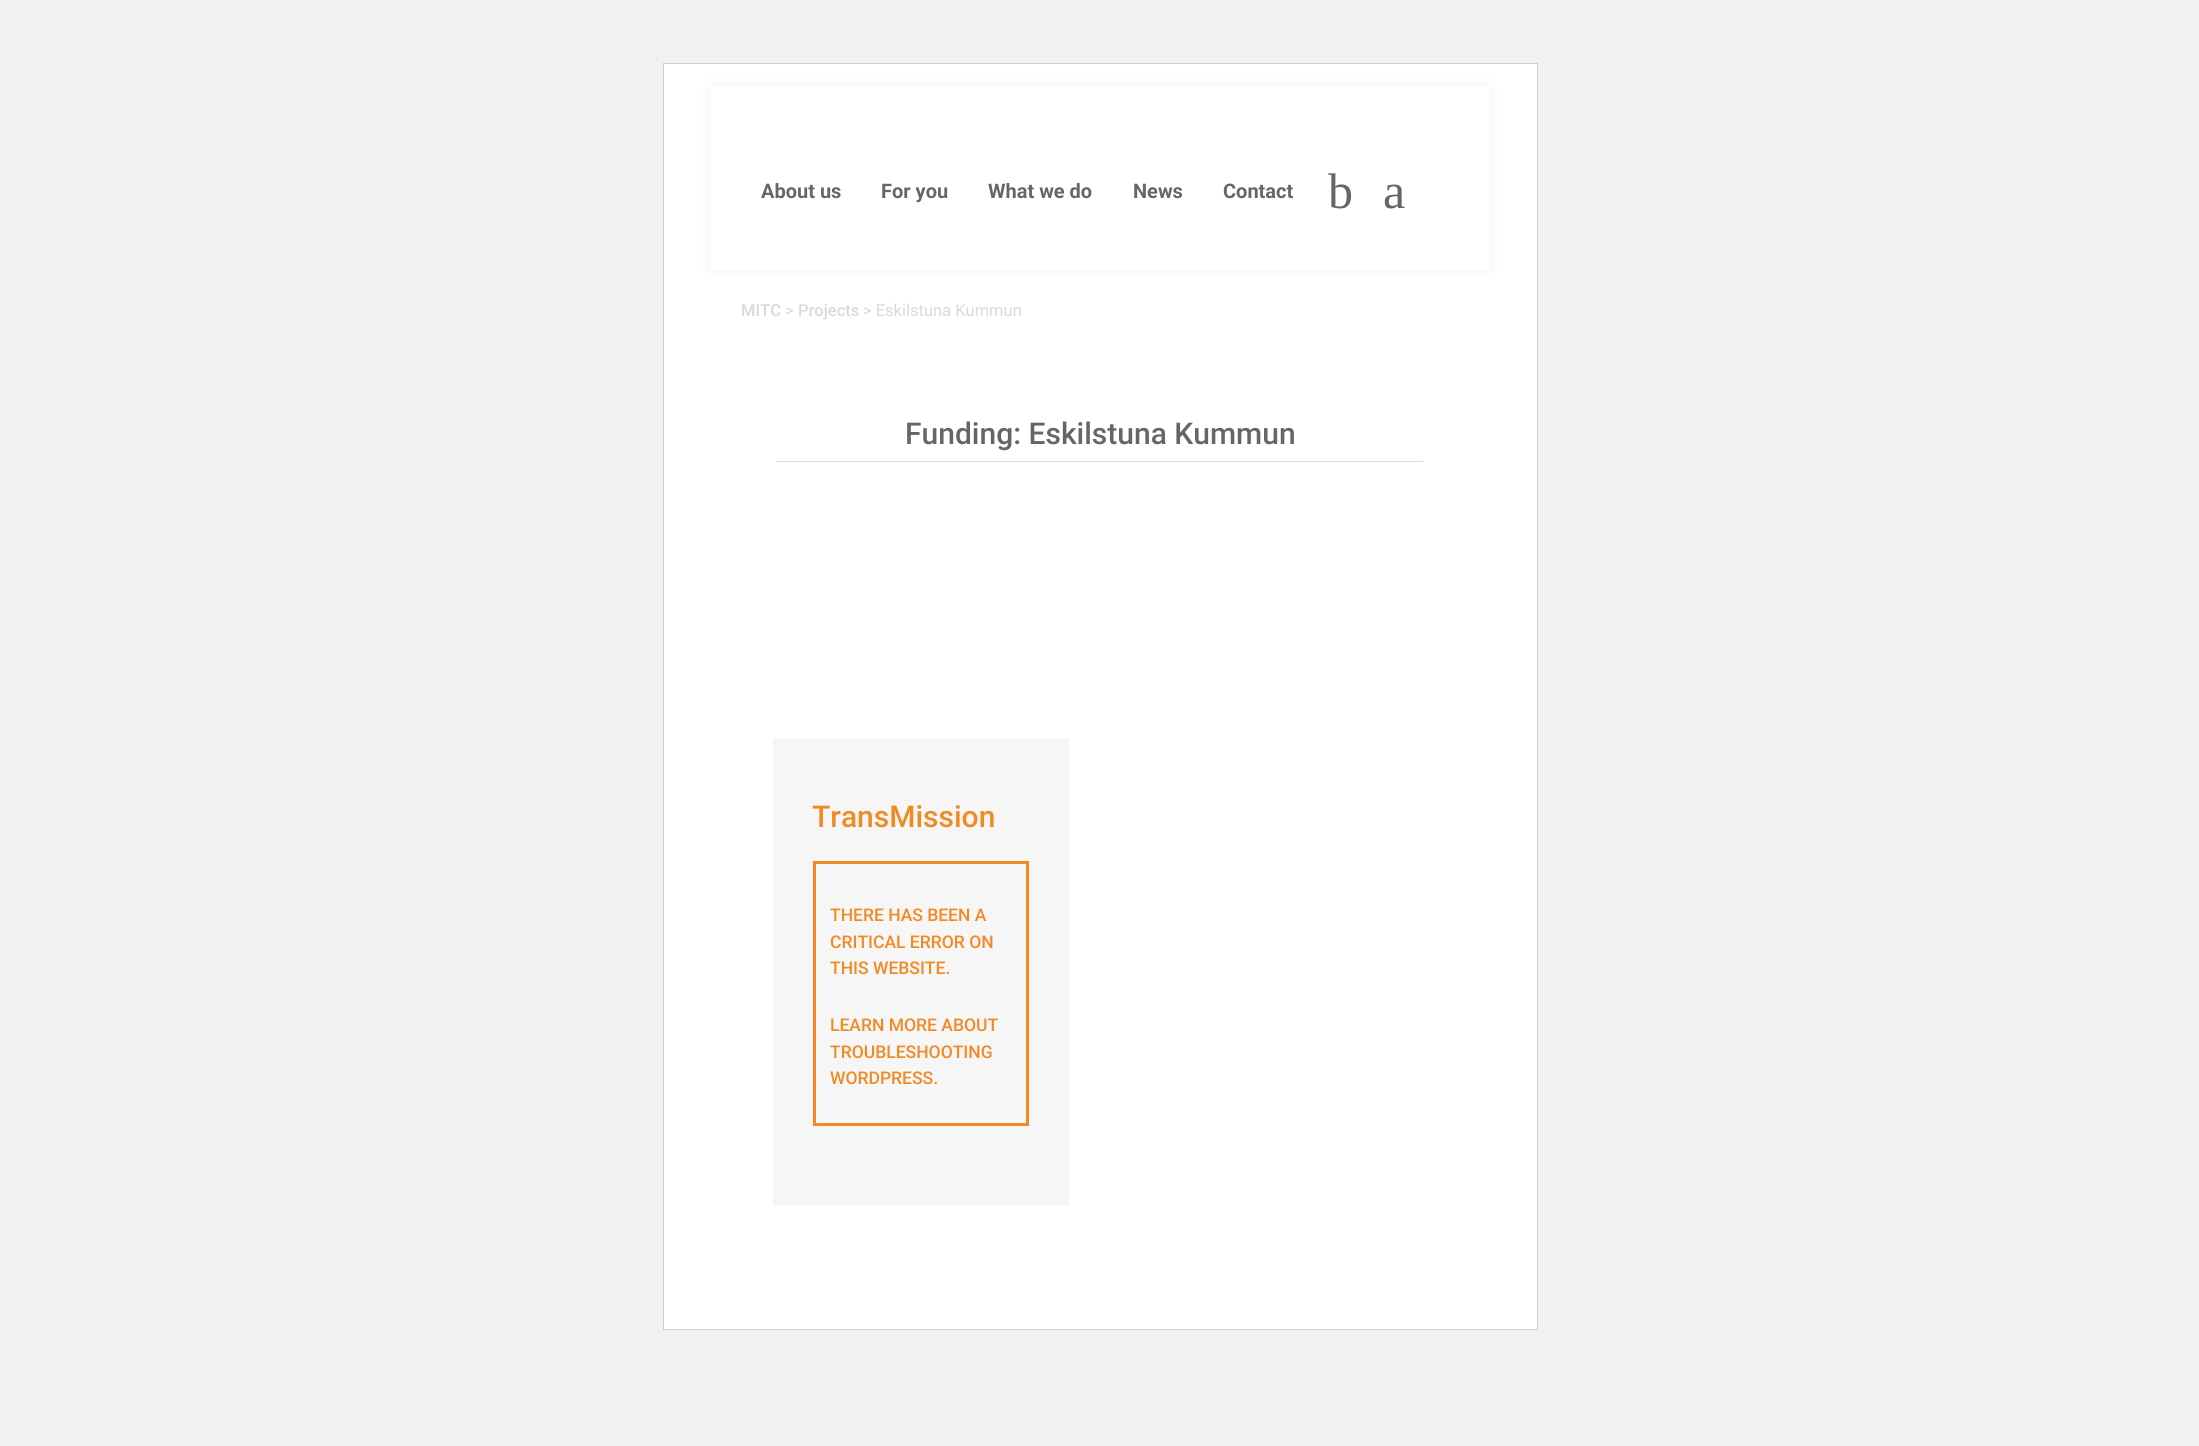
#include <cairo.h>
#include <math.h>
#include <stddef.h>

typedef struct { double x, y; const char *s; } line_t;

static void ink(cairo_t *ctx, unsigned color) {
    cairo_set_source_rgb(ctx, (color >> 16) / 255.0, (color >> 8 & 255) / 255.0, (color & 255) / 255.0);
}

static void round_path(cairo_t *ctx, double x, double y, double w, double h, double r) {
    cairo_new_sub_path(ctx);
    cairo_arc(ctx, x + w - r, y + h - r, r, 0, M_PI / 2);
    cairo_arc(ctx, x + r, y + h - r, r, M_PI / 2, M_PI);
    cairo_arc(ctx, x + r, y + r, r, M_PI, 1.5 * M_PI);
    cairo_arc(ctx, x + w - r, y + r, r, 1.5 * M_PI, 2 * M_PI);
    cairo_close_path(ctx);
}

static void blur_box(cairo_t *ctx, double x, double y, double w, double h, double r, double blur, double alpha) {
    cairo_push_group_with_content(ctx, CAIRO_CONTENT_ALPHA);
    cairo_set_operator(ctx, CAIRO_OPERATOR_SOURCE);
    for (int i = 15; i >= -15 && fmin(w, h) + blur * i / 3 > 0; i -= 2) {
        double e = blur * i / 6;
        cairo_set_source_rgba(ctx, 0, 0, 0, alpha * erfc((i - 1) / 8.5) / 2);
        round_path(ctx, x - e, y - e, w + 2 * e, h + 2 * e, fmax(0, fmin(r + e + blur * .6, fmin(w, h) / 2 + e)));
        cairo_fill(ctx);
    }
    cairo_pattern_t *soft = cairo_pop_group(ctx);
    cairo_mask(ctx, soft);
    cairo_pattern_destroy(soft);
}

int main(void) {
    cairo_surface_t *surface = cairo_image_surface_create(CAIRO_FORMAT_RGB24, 2199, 1446);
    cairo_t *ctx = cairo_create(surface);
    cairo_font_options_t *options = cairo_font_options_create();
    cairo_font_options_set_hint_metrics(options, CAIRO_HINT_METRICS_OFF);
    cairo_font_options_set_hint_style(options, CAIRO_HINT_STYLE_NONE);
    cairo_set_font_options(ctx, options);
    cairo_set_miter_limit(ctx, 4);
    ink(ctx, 0xF1F1F1);
    cairo_paint(ctx);
    ink(ctx, 0xFFFFFF);
    cairo_rectangle(ctx, 663.5, 63.5, 874, 1266);
    cairo_fill_preserve(ctx);
    ink(ctx, 0xCCD0D4);
    cairo_set_line_width(ctx, 1);
    cairo_stroke(ctx);
    ink(ctx, 0x000000);
    blur_box(ctx, 710, 86, 780, 184, 0, 6, 0.05);
    ink(ctx, 0xFFFFFF);
    cairo_rectangle(ctx, 710, 86, 780, 184);
    cairo_fill(ctx);
    cairo_select_font_face(ctx, "Roboto", CAIRO_FONT_SLANT_NORMAL, CAIRO_FONT_WEIGHT_BOLD);
    cairo_set_font_size(ctx, 20);
    ink(ctx, 0x666666);
    {
        static const line_t items[] = {
            {761, 198, "About us"},
            {881, 198, "For you"},
            {988, 198, "What we do"},
            {1133, 198, "News"},
            {1223, 198, "Contact"},
        };
        for (size_t i = 0; i < sizeof items / sizeof *items; i++) {
            cairo_move_to(ctx, items[i].x, items[i].y);
            cairo_show_text(ctx, items[i].s);
        }
    }
    cairo_select_font_face(ctx, "Liberation Serif", CAIRO_FONT_SLANT_NORMAL, CAIRO_FONT_WEIGHT_NORMAL);
    cairo_set_font_size(ctx, 50);
    cairo_move_to(ctx, 1328, 208);
    cairo_show_text(ctx, "b");
    cairo_move_to(ctx, 1383, 208);
    cairo_show_text(ctx, "a");
    cairo_select_font_face(ctx, "Roboto Medium", CAIRO_FONT_SLANT_NORMAL, CAIRO_FONT_WEIGHT_NORMAL);
    cairo_set_font_size(ctx, 16.5);
    ink(ctx, 0xD9D9D9);
    cairo_move_to(ctx, 741, 316);
    cairo_show_text(ctx, "MITC");
    cairo_select_font_face(ctx, "Roboto", CAIRO_FONT_SLANT_NORMAL, CAIRO_FONT_WEIGHT_NORMAL);
    cairo_move_to(ctx, 785, 316);
    cairo_show_text(ctx, ">");
    cairo_select_font_face(ctx, "Roboto Medium", CAIRO_FONT_SLANT_NORMAL, CAIRO_FONT_WEIGHT_NORMAL);
    cairo_move_to(ctx, 798, 316);
    cairo_show_text(ctx, "Projects");
    cairo_select_font_face(ctx, "Roboto", CAIRO_FONT_SLANT_NORMAL, CAIRO_FONT_WEIGHT_NORMAL);
    cairo_move_to(ctx, 863, 316);
    cairo_show_text(ctx, "> Eskilstuna Kummun");
    ink(ctx, 0xDADADA);
    cairo_rectangle(ctx, 776, 461, 647, 1);
    cairo_fill(ctx);
    cairo_select_font_face(ctx, "Roboto Medium", CAIRO_FONT_SLANT_NORMAL, CAIRO_FONT_WEIGHT_NORMAL);
    cairo_set_font_size(ctx, 30);
    ink(ctx, 0x666666);
    cairo_move_to(ctx, 905, 444);
    cairo_show_text(ctx, "Funding: Eskilstuna Kummun");
    ink(ctx, 0xF6F6F6);
    cairo_rectangle(ctx, 773, 738, 296, 468);
    cairo_fill(ctx);
    ink(ctx, 0xF28A23);
    cairo_move_to(ctx, 812, 827);
    cairo_show_text(ctx, "TransMission");
    cairo_rectangle(ctx, 814.5, 862.5, 213, 262);
    cairo_set_line_width(ctx, 3);
    cairo_stroke(ctx);
    cairo_set_font_size(ctx, 17.5);
    {
        static const line_t items[] = {
            {830, 921, "THERE HAS BEEN A"},
            {830, 948, "CRITICAL ERROR ON"},
            {830, 974, "THIS WEBSITE."},
            {830, 1031, "LEARN MORE ABOUT"},
            {830, 1058, "TROUBLESHOOTING"},
            {830, 1084, "WORDPRESS."},
        };
        for (size_t i = 0; i < sizeof items / sizeof *items; i++) {
            cairo_move_to(ctx, items[i].x, items[i].y);
            cairo_show_text(ctx, items[i].s);
        }
    }
    cairo_surface_write_to_png(surface, "image.png");
    cairo_font_options_destroy(options);
    cairo_destroy(ctx);
    cairo_surface_destroy(surface);
    return 0;
}
